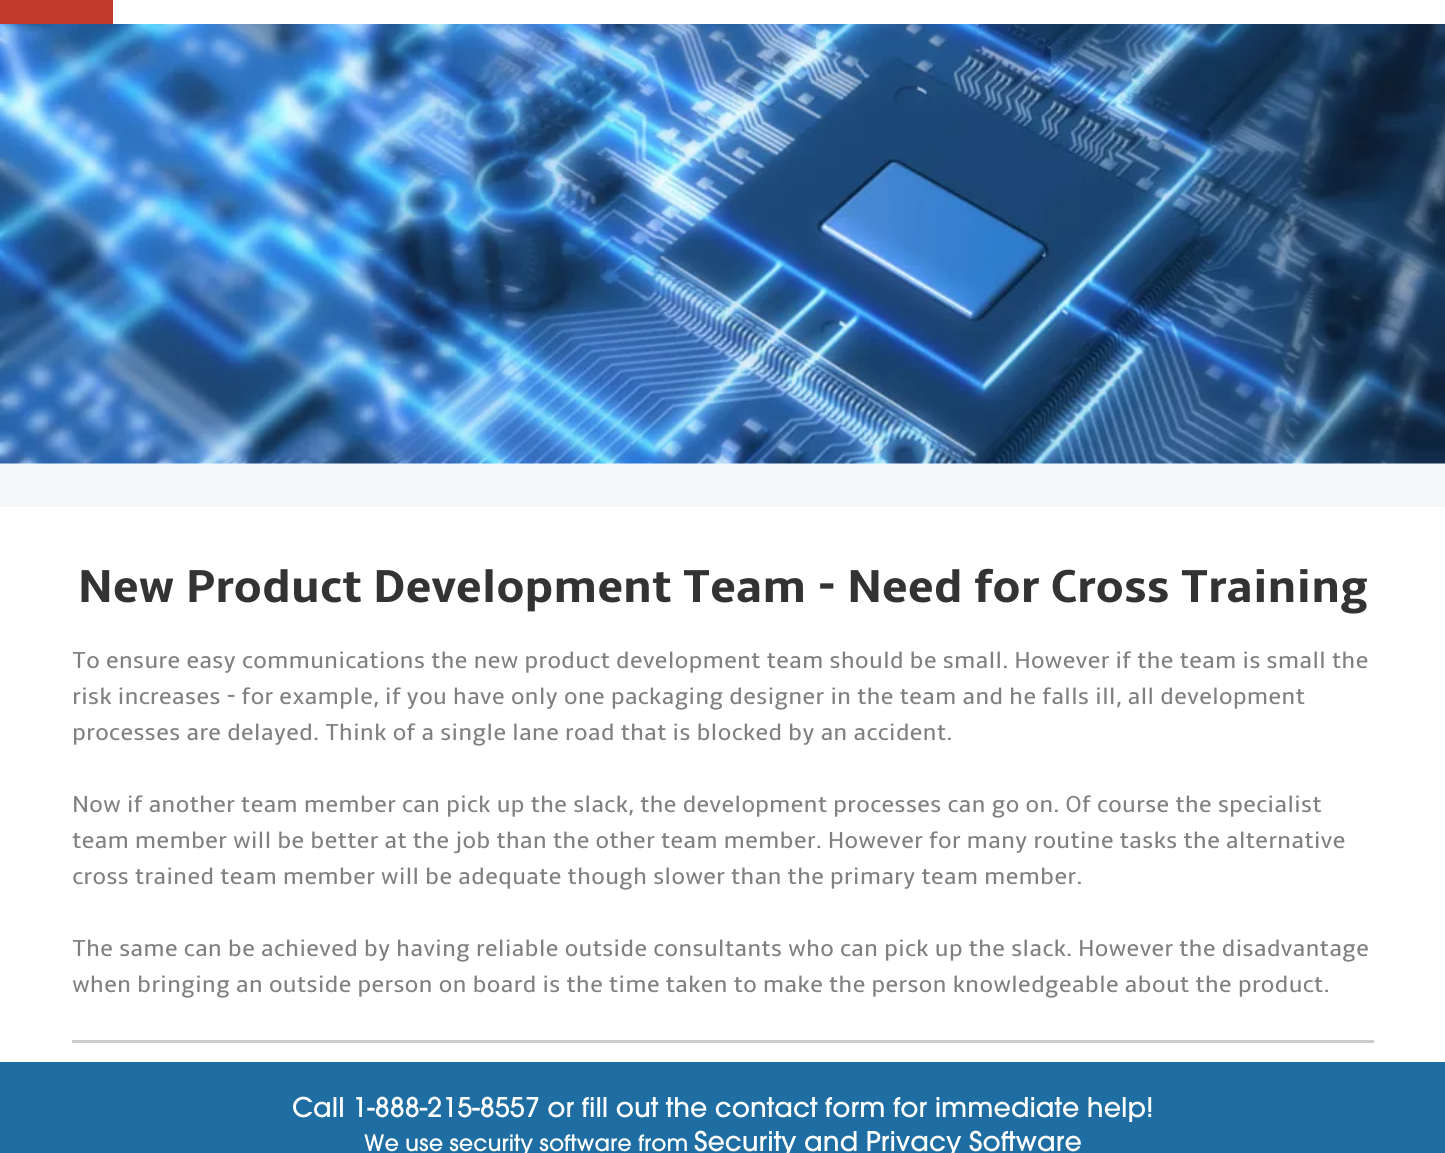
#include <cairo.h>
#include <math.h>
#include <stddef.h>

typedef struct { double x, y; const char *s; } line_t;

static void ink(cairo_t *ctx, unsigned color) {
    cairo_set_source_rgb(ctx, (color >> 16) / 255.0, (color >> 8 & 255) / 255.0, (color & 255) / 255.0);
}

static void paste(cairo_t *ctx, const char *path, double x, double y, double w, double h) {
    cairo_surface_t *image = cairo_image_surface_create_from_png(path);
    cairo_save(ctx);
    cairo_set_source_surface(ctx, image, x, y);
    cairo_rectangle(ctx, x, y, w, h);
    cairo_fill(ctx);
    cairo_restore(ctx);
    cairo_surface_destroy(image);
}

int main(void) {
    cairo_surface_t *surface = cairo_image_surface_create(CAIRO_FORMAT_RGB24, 1445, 1153);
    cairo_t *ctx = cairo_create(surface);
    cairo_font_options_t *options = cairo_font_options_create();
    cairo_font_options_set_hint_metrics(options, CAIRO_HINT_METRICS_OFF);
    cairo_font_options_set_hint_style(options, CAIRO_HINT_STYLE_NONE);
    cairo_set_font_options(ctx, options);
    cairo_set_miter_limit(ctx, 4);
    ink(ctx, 0xF4F8FB);
    cairo_paint(ctx);
    ink(ctx, 0xFFFFFF);
    cairo_rectangle(ctx, 113, 0, 1332, 24);
    cairo_fill(ctx);
    ink(ctx, 0xC0392B);
    cairo_rectangle(ctx, 0, 0, 113, 24);
    cairo_fill(ctx);
    paste(ctx, "media/1.png", 0, 24, 1445, 440);
    ink(ctx, 0xFFFFFF);
    cairo_rectangle(ctx, 0, 507, 1445, 555);
    cairo_fill(ctx);
    cairo_select_font_face(ctx, "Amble", CAIRO_FONT_SLANT_NORMAL, CAIRO_FONT_WEIGHT_BOLD);
    cairo_set_font_size(ctx, 48);
    ink(ctx, 0x333333);
    cairo_move_to(ctx, 78, 602);
    cairo_show_text(ctx, "New Product Development Team - Need for Cross Training");
    cairo_select_font_face(ctx, "Amble", CAIRO_FONT_SLANT_NORMAL, CAIRO_FONT_WEIGHT_NORMAL);
    cairo_set_font_size(ctx, 24);
    ink(ctx, 0x808080);
    {
        static const line_t items[] = {
            {72, 668, "To ensure easy communications the new product development team should be small. However if the team is small the"},
            {72, 704, "risk increases - for example, if you have only one packaging designer in the team and he falls ill, all development"},
            {72, 740, "processes are delayed. Think of a single lane road that is blocked by an accident."},
            {72, 812, "Now if another team member can pick up the slack, the development processes can go on. Of course the specialist"},
            {72, 848, "team member will be better at the job than the other team member. However for many routine tasks the alternative"},
            {72, 884, "cross trained team member will be adequate though slower than the primary team member."},
            {72, 956, "The same can be achieved by having reliable outside consultants who can pick up the slack. However the disadvantage"},
            {72, 992, "when bringing an outside person on board is the time taken to make the person knowledgeable about the product."},
        };
        for (size_t i = 0; i < sizeof items / sizeof *items; i++) {
            cairo_move_to(ctx, items[i].x, items[i].y);
            cairo_show_text(ctx, items[i].s);
        }
    }
    ink(ctx, 0xCCCCCC);
    cairo_rectangle(ctx, 72, 1040, 1302, 3);
    cairo_fill(ctx);
    ink(ctx, 0x1E6EA3);
    cairo_rectangle(ctx, 0, 1062, 1445, 91);
    cairo_fill(ctx);
    cairo_select_font_face(ctx, "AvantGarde", CAIRO_FONT_SLANT_NORMAL, CAIRO_FONT_WEIGHT_NORMAL);
    cairo_set_font_size(ctx, 27);
    ink(ctx, 0xFFFFFF);
    cairo_move_to(ctx, 292, 1117);
    cairo_show_text(ctx, "Call 1-888-215-8557 or fill out the contact form for immediate help!");
    cairo_set_font_size(ctx, 22.5);
    cairo_move_to(ctx, 364, 1151);
    cairo_show_text(ctx, "We use security software from");
    cairo_set_font_size(ctx, 27);
    cairo_move_to(ctx, 694, 1151);
    cairo_show_text(ctx, "Security and Privacy Software");
    cairo_surface_write_to_png(surface, "image.png");
    cairo_font_options_destroy(options);
    cairo_destroy(ctx);
    cairo_surface_destroy(surface);
    return 0;
}
